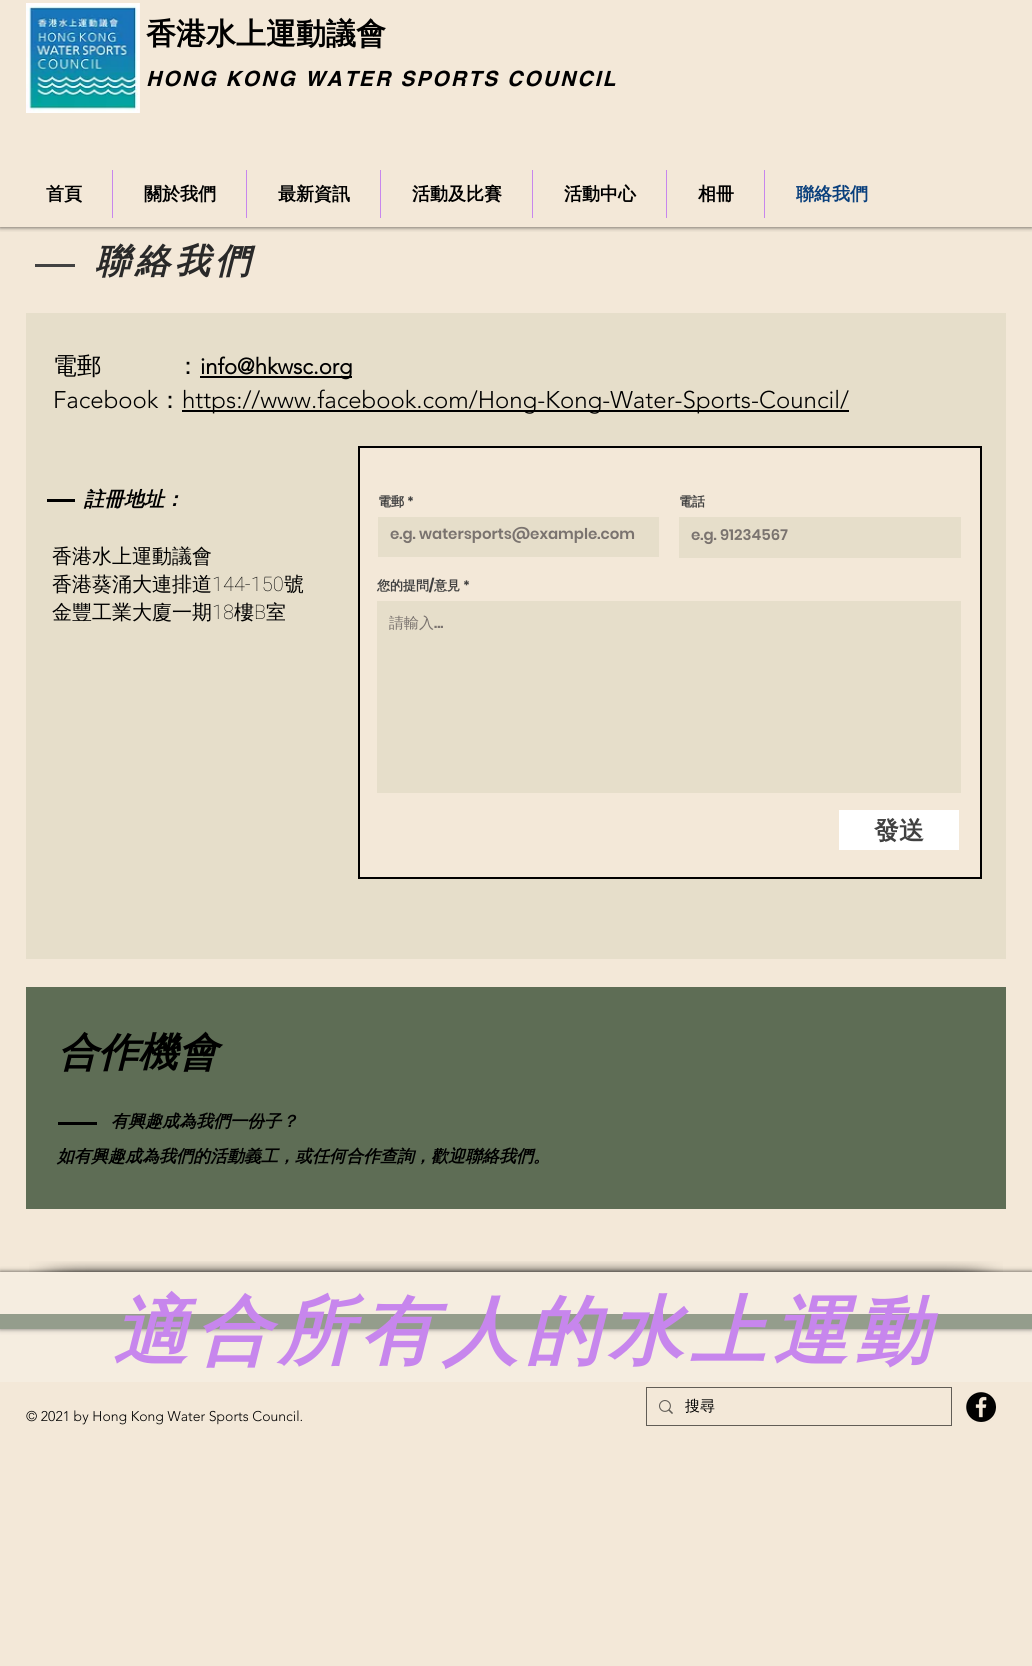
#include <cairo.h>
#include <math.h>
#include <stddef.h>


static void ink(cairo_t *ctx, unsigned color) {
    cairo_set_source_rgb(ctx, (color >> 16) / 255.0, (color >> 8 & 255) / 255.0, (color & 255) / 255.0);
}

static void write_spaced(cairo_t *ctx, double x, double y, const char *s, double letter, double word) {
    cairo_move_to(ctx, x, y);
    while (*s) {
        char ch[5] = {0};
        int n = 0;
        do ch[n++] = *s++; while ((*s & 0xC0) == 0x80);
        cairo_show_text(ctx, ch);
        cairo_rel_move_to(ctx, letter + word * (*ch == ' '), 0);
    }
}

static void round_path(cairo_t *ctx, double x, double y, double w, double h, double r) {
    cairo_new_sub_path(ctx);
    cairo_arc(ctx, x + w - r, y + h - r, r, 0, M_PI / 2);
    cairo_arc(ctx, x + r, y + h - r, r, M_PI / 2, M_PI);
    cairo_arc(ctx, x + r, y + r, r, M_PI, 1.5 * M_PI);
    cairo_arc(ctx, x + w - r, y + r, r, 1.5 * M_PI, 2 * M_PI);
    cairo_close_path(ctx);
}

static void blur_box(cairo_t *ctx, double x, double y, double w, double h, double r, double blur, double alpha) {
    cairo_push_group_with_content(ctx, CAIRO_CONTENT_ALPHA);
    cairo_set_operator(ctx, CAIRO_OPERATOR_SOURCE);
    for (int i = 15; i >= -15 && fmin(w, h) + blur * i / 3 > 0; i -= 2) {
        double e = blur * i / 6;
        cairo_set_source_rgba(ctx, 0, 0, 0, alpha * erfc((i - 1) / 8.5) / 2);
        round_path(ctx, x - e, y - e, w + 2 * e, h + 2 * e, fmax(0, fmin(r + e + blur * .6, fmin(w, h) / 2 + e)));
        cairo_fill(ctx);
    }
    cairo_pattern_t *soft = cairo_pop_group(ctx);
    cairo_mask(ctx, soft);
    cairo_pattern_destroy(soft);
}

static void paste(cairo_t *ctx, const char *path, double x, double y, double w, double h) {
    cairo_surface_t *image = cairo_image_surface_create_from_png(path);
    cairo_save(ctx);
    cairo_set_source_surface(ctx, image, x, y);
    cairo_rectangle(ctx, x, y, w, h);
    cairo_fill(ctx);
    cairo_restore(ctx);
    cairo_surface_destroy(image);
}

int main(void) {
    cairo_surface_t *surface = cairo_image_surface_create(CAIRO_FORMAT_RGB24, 1032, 1666);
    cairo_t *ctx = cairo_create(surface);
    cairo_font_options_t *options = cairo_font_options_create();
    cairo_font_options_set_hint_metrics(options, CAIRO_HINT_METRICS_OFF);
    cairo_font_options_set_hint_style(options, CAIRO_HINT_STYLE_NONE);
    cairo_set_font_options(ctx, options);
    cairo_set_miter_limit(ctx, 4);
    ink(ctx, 0xF3E8D8);
    cairo_paint(ctx);
    cairo_save(ctx);
    cairo_rectangle(ctx, 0, 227, 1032, 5);
    cairo_clip(ctx);
    ink(ctx, 0x000000);
    blur_box(ctx, 0, 0, 1032, 227, 0, 2.5, 0.7);
    cairo_restore(ctx);
    paste(ctx, "media/1.png", 26, 3, 114, 110);
    cairo_select_font_face(ctx, "WenQuanYi Zen Hei", CAIRO_FONT_SLANT_NORMAL, CAIRO_FONT_WEIGHT_BOLD);
    cairo_set_font_size(ctx, 30);
    ink(ctx, 0x000000);
    cairo_move_to(ctx, 146, 44);
    cairo_show_text(ctx, "香港水上運動議會");
    cairo_select_font_face(ctx, "helvetica", CAIRO_FONT_SLANT_ITALIC, CAIRO_FONT_WEIGHT_BOLD);
    cairo_set_font_size(ctx, 21);
    write_spaced(ctx, 146, 86, "HONG KONG WATER SPORTS COUNCIL", 2.1, 0);
    cairo_select_font_face(ctx, "WenQuanYi Zen Hei", CAIRO_FONT_SLANT_NORMAL, CAIRO_FONT_WEIGHT_BOLD);
    cairo_set_font_size(ctx, 18);
    cairo_move_to(ctx, 46, 200);
    cairo_show_text(ctx, "首頁");
    ink(ctx, 0xC786ED);
    cairo_rectangle(ctx, 112, 170, 1, 48);
    cairo_fill(ctx);
    ink(ctx, 0x000000);
    cairo_move_to(ctx, 144, 200);
    cairo_show_text(ctx, "關於我們");
    ink(ctx, 0xC786ED);
    cairo_rectangle(ctx, 246, 170, 1, 48);
    cairo_fill(ctx);
    ink(ctx, 0x000000);
    cairo_move_to(ctx, 278, 200);
    cairo_show_text(ctx, "最新資訊");
    ink(ctx, 0xC786ED);
    cairo_rectangle(ctx, 380, 170, 1, 48);
    cairo_fill(ctx);
    ink(ctx, 0x000000);
    cairo_move_to(ctx, 412, 200);
    cairo_show_text(ctx, "活動及比賽");
    ink(ctx, 0xC786ED);
    cairo_rectangle(ctx, 532, 170, 1, 48);
    cairo_fill(ctx);
    ink(ctx, 0x000000);
    cairo_move_to(ctx, 564, 200);
    cairo_show_text(ctx, "活動中心");
    ink(ctx, 0xC786ED);
    cairo_rectangle(ctx, 666, 170, 1, 48);
    cairo_fill(ctx);
    ink(ctx, 0x000000);
    cairo_move_to(ctx, 698, 200);
    cairo_show_text(ctx, "相冊");
    ink(ctx, 0xC786ED);
    cairo_rectangle(ctx, 764, 170, 1, 48);
    cairo_fill(ctx);
    ink(ctx, 0x093F7C);
    cairo_move_to(ctx, 796, 200);
    cairo_show_text(ctx, "聯絡我們");
    ink(ctx, 0x424242);
    cairo_rectangle(ctx, 35, 264, 40, 3);
    cairo_fill(ctx);
    cairo_select_font_face(ctx, "WenQuanYi Zen Hei", CAIRO_FONT_SLANT_ITALIC, CAIRO_FONT_WEIGHT_BOLD);
    cairo_set_font_size(ctx, 35);
    ink(ctx, 0x292929);
    write_spaced(ctx, 95, 273, "聯絡我們", 5, 0);
    ink(ctx, 0xE6DECA);
    cairo_rectangle(ctx, 26, 313, 980, 646);
    cairo_fill(ctx);
    cairo_select_font_face(ctx, "WenQuanYi Zen Hei Medium", CAIRO_FONT_SLANT_NORMAL, CAIRO_FONT_WEIGHT_NORMAL);
    cairo_set_font_size(ctx, 24);
    ink(ctx, 0x000000);
    cairo_move_to(ctx, 53, 374);
    cairo_show_text(ctx, "電郵");
    cairo_move_to(ctx, 176, 374);
    cairo_show_text(ctx, "：");
    cairo_rectangle(ctx, 200, 376, 152, 2);
    cairo_fill(ctx);
    cairo_select_font_face(ctx, "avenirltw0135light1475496", CAIRO_FONT_SLANT_NORMAL, CAIRO_FONT_WEIGHT_BOLD);
    cairo_set_font_size(ctx, 22);
    cairo_move_to(ctx, 200, 374);
    cairo_show_text(ctx, "info@hkwsc.org");
    cairo_select_font_face(ctx, "avenirltw0135light1475496 Light", CAIRO_FONT_SLANT_NORMAL, CAIRO_FONT_WEIGHT_NORMAL);
    cairo_set_font_size(ctx, 24);
    cairo_move_to(ctx, 53, 408);
    cairo_show_text(ctx, "Facebook");
    cairo_select_font_face(ctx, "WenQuanYi Zen Hei Medium", CAIRO_FONT_SLANT_NORMAL, CAIRO_FONT_WEIGHT_NORMAL);
    cairo_move_to(ctx, 158, 408);
    cairo_show_text(ctx, "：");
    cairo_rectangle(ctx, 182, 410, 667, 2);
    cairo_fill(ctx);
    cairo_select_font_face(ctx, "avenirltw0135light1475496 Light", CAIRO_FONT_SLANT_NORMAL, CAIRO_FONT_WEIGHT_NORMAL);
    cairo_move_to(ctx, 182, 408);
    cairo_show_text(ctx, "https://www.facebook.com/Hong-Kong-Water-Sports-Council/");
    cairo_rectangle(ctx, 47, 499, 28, 3);
    cairo_fill(ctx);
    cairo_select_font_face(ctx, "WenQuanYi Zen Hei", CAIRO_FONT_SLANT_ITALIC, CAIRO_FONT_WEIGHT_BOLD);
    cairo_set_font_size(ctx, 20);
    cairo_move_to(ctx, 84, 506);
    cairo_show_text(ctx, "註冊地址：");
    ink(ctx, 0xF3E8D8);
    cairo_rectangle(ctx, 359, 447, 622, 431);
    cairo_fill_preserve(ctx);
    ink(ctx, 0x000000);
    cairo_stroke(ctx);
    cairo_select_font_face(ctx, "WenQuanYi Zen Hei", CAIRO_FONT_SLANT_NORMAL, CAIRO_FONT_WEIGHT_BOLD);
    cairo_set_font_size(ctx, 13);
    ink(ctx, 0x414141);
    cairo_move_to(ctx, 378, 506);
    cairo_show_text(ctx, "電郵");
    cairo_select_font_face(ctx, "Poppins", CAIRO_FONT_SLANT_NORMAL, CAIRO_FONT_WEIGHT_BOLD);
    cairo_move_to(ctx, 407, 506);
    cairo_show_text(ctx, "*");
    ink(ctx, 0xE6DECA);
    cairo_rectangle(ctx, 378, 517, 281, 40);
    cairo_fill(ctx);
    cairo_select_font_face(ctx, "Poppins SemiBold", CAIRO_FONT_SLANT_NORMAL, CAIRO_FONT_WEIGHT_NORMAL);
    cairo_set_font_size(ctx, 15);
    ink(ctx, 0x7A736F);
    cairo_move_to(ctx, 390, 539);
    cairo_show_text(ctx, "e.g. watersports@example.com");
    cairo_select_font_face(ctx, "WenQuanYi Zen Hei", CAIRO_FONT_SLANT_NORMAL, CAIRO_FONT_WEIGHT_BOLD);
    cairo_set_font_size(ctx, 13);
    ink(ctx, 0x414141);
    cairo_move_to(ctx, 679, 506);
    cairo_show_text(ctx, "電話");
    ink(ctx, 0xE6DECA);
    cairo_rectangle(ctx, 679, 517, 282, 41);
    cairo_fill(ctx);
    cairo_select_font_face(ctx, "Poppins SemiBold", CAIRO_FONT_SLANT_NORMAL, CAIRO_FONT_WEIGHT_NORMAL);
    cairo_set_font_size(ctx, 15);
    ink(ctx, 0x7A736F);
    cairo_move_to(ctx, 691, 540);
    cairo_show_text(ctx, "e.g. 91234567");
    cairo_select_font_face(ctx, "WenQuanYi Zen Hei", CAIRO_FONT_SLANT_NORMAL, CAIRO_FONT_WEIGHT_BOLD);
    cairo_set_font_size(ctx, 13);
    ink(ctx, 0x414141);
    cairo_move_to(ctx, 377, 590);
    cairo_show_text(ctx, "您的提問");
    cairo_select_font_face(ctx, "Poppins", CAIRO_FONT_SLANT_NORMAL, CAIRO_FONT_WEIGHT_BOLD);
    cairo_move_to(ctx, 429, 590);
    cairo_show_text(ctx, "/");
    cairo_select_font_face(ctx, "WenQuanYi Zen Hei", CAIRO_FONT_SLANT_NORMAL, CAIRO_FONT_WEIGHT_BOLD);
    cairo_move_to(ctx, 434, 590);
    cairo_show_text(ctx, "意見");
    cairo_select_font_face(ctx, "Poppins", CAIRO_FONT_SLANT_NORMAL, CAIRO_FONT_WEIGHT_BOLD);
    cairo_move_to(ctx, 463, 590);
    cairo_show_text(ctx, "*");
    ink(ctx, 0xE6DECA);
    cairo_rectangle(ctx, 377, 601, 584, 192);
    cairo_fill(ctx);
    cairo_select_font_face(ctx, "WenQuanYi Zen Hei Medium", CAIRO_FONT_SLANT_NORMAL, CAIRO_FONT_WEIGHT_NORMAL);
    cairo_set_font_size(ctx, 15);
    ink(ctx, 0x7A736F);
    cairo_move_to(ctx, 389, 628);
    cairo_show_text(ctx, "請輸入");
    cairo_select_font_face(ctx, "Poppins SemiBold", CAIRO_FONT_SLANT_NORMAL, CAIRO_FONT_WEIGHT_NORMAL);
    cairo_move_to(ctx, 434, 628);
    cairo_show_text(ctx, "...");
    ink(ctx, 0xFFFFFF);
    cairo_rectangle(ctx, 839, 810, 120, 40);
    cairo_fill(ctx);
    cairo_select_font_face(ctx, "WenQuanYi Zen Hei", CAIRO_FONT_SLANT_NORMAL, CAIRO_FONT_WEIGHT_BOLD);
    cairo_set_font_size(ctx, 25);
    ink(ctx, 0x414141);
    cairo_move_to(ctx, 874, 839);
    cairo_show_text(ctx, "發送");
    cairo_select_font_face(ctx, "WenQuanYi Zen Hei Medium", CAIRO_FONT_SLANT_NORMAL, CAIRO_FONT_WEIGHT_NORMAL);
    cairo_set_font_size(ctx, 20);
    ink(ctx, 0x000000);
    cairo_move_to(ctx, 52, 563);
    cairo_show_text(ctx, "香港水上運動議會");
    cairo_move_to(ctx, 52, 591);
    cairo_show_text(ctx, "香港葵涌大連排道");
    cairo_select_font_face(ctx, "Roboto Thin", CAIRO_FONT_SLANT_NORMAL, CAIRO_FONT_WEIGHT_NORMAL);
    cairo_move_to(ctx, 212, 591);
    cairo_show_text(ctx, "144-150");
    cairo_select_font_face(ctx, "WenQuanYi Zen Hei Medium", CAIRO_FONT_SLANT_NORMAL, CAIRO_FONT_WEIGHT_NORMAL);
    cairo_move_to(ctx, 284, 591);
    cairo_show_text(ctx, "號");
    cairo_move_to(ctx, 52, 619);
    cairo_show_text(ctx, "金豐工業大廈一期");
    cairo_select_font_face(ctx, "Roboto Thin", CAIRO_FONT_SLANT_NORMAL, CAIRO_FONT_WEIGHT_NORMAL);
    cairo_move_to(ctx, 212, 619);
    cairo_show_text(ctx, "18");
    cairo_select_font_face(ctx, "WenQuanYi Zen Hei Medium", CAIRO_FONT_SLANT_NORMAL, CAIRO_FONT_WEIGHT_NORMAL);
    cairo_move_to(ctx, 234, 619);
    cairo_show_text(ctx, "樓");
    cairo_select_font_face(ctx, "Roboto Thin", CAIRO_FONT_SLANT_NORMAL, CAIRO_FONT_WEIGHT_NORMAL);
    cairo_move_to(ctx, 254, 619);
    cairo_show_text(ctx, "B");
    cairo_select_font_face(ctx, "WenQuanYi Zen Hei Medium", CAIRO_FONT_SLANT_NORMAL, CAIRO_FONT_WEIGHT_NORMAL);
    cairo_move_to(ctx, 266, 619);
    cairo_show_text(ctx, "室");
    ink(ctx, 0x5E6D55);
    cairo_rectangle(ctx, 26, 987, 980, 222);
    cairo_fill(ctx);
    cairo_select_font_face(ctx, "WenQuanYi Zen Hei", CAIRO_FONT_SLANT_ITALIC, CAIRO_FONT_WEIGHT_BOLD);
    cairo_set_font_size(ctx, 40);
    ink(ctx, 0x000000);
    cairo_move_to(ctx, 58, 1066);
    cairo_show_text(ctx, "合作機會");
    cairo_rectangle(ctx, 58, 1122, 39, 3);
    cairo_fill(ctx);
    cairo_set_font_size(ctx, 17);
    cairo_move_to(ctx, 111, 1127);
    cairo_show_text(ctx, "有興趣成為我們一份子？");
    cairo_move_to(ctx, 57, 1162);
    cairo_show_text(ctx, "如有興趣成為我們的活動義工，或任何合作查詢，歡迎聯絡我們。");
    cairo_save(ctx);
    cairo_set_fill_rule(ctx, CAIRO_FILL_RULE_EVEN_ODD);
    cairo_new_path(ctx);
    cairo_move_to(ctx, 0, 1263);
    cairo_line_to(ctx, 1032, 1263);
    cairo_line_to(ctx, 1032, 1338);
    cairo_line_to(ctx, 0, 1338);
    cairo_close_path(ctx);
    cairo_move_to(ctx, 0, 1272);
    cairo_line_to(ctx, 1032, 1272);
    cairo_line_to(ctx, 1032, 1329);
    cairo_line_to(ctx, 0, 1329);
    cairo_close_path(ctx);
    cairo_clip(ctx);
    ink(ctx, 0x000000);
    blur_box(ctx, 0, 1272, 1032, 57, 0, 2.5, 0.7);
    cairo_restore(ctx);
    ink(ctx, 0x747F69);
    cairo_rectangle(ctx, 0, 1314, 1032, 15);
    cairo_fill(ctx);
    paste(ctx, "media/2.png", 29, 1261, 97, 11);
    paste(ctx, "media/3.png", 126, 1261, 780, 11);
    paste(ctx, "media/4.png", 906, 1261, 97, 11);
    cairo_set_source_rgba(ctx, 0.98, 0.98, 0.98, 0.24);
    cairo_rectangle(ctx, 0, 1272, 1032, 110);
    cairo_fill(ctx);
    cairo_set_font_size(ctx, 75);
    ink(ctx, 0xC786ED);
    write_spaced(ctx, 113, 1357, "適合所有人的水上運動", 7.5, 0);
    cairo_rectangle(ctx, 646.5, 1387.5, 305, 38);
    ink(ctx, 0x615D56);
    cairo_set_line_width(ctx, 1);
    cairo_stroke(ctx);
    paste(ctx, "media/5.png", 659, 1400, 14, 14);
    cairo_select_font_face(ctx, "WenQuanYi Zen Hei Medium", CAIRO_FONT_SLANT_NORMAL, CAIRO_FONT_WEIGHT_NORMAL);
    cairo_set_font_size(ctx, 15);
    ink(ctx, 0x000000);
    cairo_move_to(ctx, 685, 1411);
    cairo_show_text(ctx, "搜尋");
    paste(ctx, "media/6.png", 966, 1392, 30, 30);
    cairo_select_font_face(ctx, "avenirltw0135light1475496 Light", CAIRO_FONT_SLANT_NORMAL, CAIRO_FONT_WEIGHT_NORMAL);
    cairo_set_font_size(ctx, 14);
    cairo_move_to(ctx, 26, 1421);
    cairo_show_text(ctx, "© 2021 by Hong Kong Water Sports Council.");
    cairo_surface_write_to_png(surface, "image.png");
    cairo_font_options_destroy(options);
    cairo_destroy(ctx);
    cairo_surface_destroy(surface);
    return 0;
}
